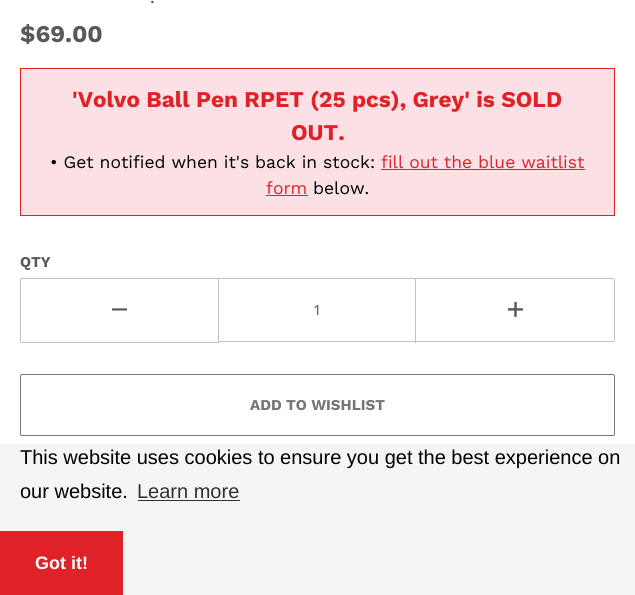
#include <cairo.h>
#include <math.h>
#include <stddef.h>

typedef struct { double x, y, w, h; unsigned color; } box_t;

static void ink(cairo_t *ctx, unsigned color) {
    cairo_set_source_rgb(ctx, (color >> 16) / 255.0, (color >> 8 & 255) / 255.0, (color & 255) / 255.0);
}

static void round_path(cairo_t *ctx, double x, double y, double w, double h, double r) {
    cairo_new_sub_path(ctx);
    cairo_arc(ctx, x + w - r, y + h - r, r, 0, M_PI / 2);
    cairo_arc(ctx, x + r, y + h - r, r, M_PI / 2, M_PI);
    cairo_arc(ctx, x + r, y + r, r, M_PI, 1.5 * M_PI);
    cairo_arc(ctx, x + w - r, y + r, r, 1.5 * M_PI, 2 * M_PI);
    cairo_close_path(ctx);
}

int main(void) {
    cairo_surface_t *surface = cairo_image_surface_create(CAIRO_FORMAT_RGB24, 635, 595);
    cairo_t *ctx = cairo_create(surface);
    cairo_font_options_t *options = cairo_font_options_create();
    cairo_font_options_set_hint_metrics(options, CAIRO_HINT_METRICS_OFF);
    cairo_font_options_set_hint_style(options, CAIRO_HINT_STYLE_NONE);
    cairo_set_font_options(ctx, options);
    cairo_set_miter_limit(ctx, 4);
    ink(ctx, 0xFFFFFF);
    cairo_paint(ctx);
    cairo_select_font_face(ctx, "Work Sans", CAIRO_FONT_SLANT_NORMAL, CAIRO_FONT_WEIGHT_NORMAL);
    cairo_set_font_size(ctx, 18);
    ink(ctx, 0x4A4A4A);
    cairo_move_to(ctx, 150, 3);
    cairo_show_text(ctx, ".");
    cairo_select_font_face(ctx, "Work Sans", CAIRO_FONT_SLANT_NORMAL, CAIRO_FONT_WEIGHT_BOLD);
    cairo_set_font_size(ctx, 24);
    ink(ctx, 0x595959);
    cairo_move_to(ctx, 20, 42);
    cairo_show_text(ctx, "$69.00");
    ink(ctx, 0xFBE0E6);
    cairo_rectangle(ctx, 20.5, 68.5, 594, 147);
    cairo_fill_preserve(ctx);
    ink(ctx, 0xDF2228);
    cairo_set_line_width(ctx, 1);
    cairo_stroke(ctx);
    cairo_set_font_size(ctx, 22.5);
    cairo_move_to(ctx, 72, 107);
    cairo_show_text(ctx, "'Volvo Ball Pen RPET (25 pcs), Grey' is SOLD");
    cairo_move_to(ctx, 291, 140);
    cairo_show_text(ctx, "OUT.");
    cairo_select_font_face(ctx, "Work Sans", CAIRO_FONT_SLANT_NORMAL, CAIRO_FONT_WEIGHT_NORMAL);
    cairo_set_font_size(ctx, 17.5);
    ink(ctx, 0x000000);
    cairo_move_to(ctx, 50, 168);
    cairo_show_text(ctx, "• Get notified when it's back in stock:");
    ink(ctx, 0xDF2228);
    cairo_move_to(ctx, 381, 168);
    cairo_show_text(ctx, "fill out the blue waitlist");
    cairo_rectangle(ctx, 381, 169, 204, 1);
    cairo_fill(ctx);
    cairo_move_to(ctx, 266, 194);
    cairo_show_text(ctx, "form");
    cairo_rectangle(ctx, 266, 195, 42, 1);
    cairo_fill(ctx);
    ink(ctx, 0x000000);
    cairo_move_to(ctx, 313, 194);
    cairo_show_text(ctx, "below.");
    cairo_select_font_face(ctx, "Work Sans", CAIRO_FONT_SLANT_NORMAL, CAIRO_FONT_WEIGHT_BOLD);
    cairo_set_font_size(ctx, 15);
    ink(ctx, 0x595959);
    cairo_move_to(ctx, 20, 267);
    cairo_show_text(ctx, "QTY");
    cairo_new_path(ctx);
    cairo_move_to(ctx, 22, 278.5);
    cairo_line_to(ctx, 218.5, 278.5);
    cairo_line_to(ctx, 218.5, 342.5);
    cairo_line_to(ctx, 22, 342.5);
    cairo_curve_to(ctx, 21, 342.5, 20.5, 342, 20.5, 341);
    cairo_line_to(ctx, 20.5, 280);
    cairo_curve_to(ctx, 20.5, 279, 21, 278.5, 22, 278.5);
    cairo_close_path(ctx);
    ink(ctx, 0xC0C0C0);
    cairo_stroke(ctx);
    cairo_select_font_face(ctx, "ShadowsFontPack", CAIRO_FONT_SLANT_NORMAL, CAIRO_FONT_WEIGHT_NORMAL);
    ink(ctx, 0x595959);
    cairo_move_to(ctx, 112, 316);
    cairo_show_text(ctx, "<");
    {
        static const box_t items[] = {
            {219, 278, 395, 1, 0xC0C0C0},
            {415, 278, 1, 65, 0xC0C0C0},
            {219, 341, 395, 1, 0xC0C0C0},
        };
        for (size_t i = 0; i < sizeof items / sizeof *items; i++) {
            ink(ctx, items[i].color);
            cairo_rectangle(ctx, items[i].x, items[i].y, items[i].w, items[i].h);
            cairo_fill(ctx);
        }
    }
    cairo_select_font_face(ctx, "Work Sans", CAIRO_FONT_SLANT_NORMAL, CAIRO_FONT_WEIGHT_NORMAL);
    ink(ctx, 0x595959);
    cairo_move_to(ctx, 314, 315);
    cairo_show_text(ctx, "1");
    ink(ctx, 0xC0C0C0);
    cairo_rectangle(ctx, 614, 279, 1, 62);
    cairo_fill(ctx);
    cairo_select_font_face(ctx, "ShadowsFontPack", CAIRO_FONT_SLANT_NORMAL, CAIRO_FONT_WEIGHT_NORMAL);
    ink(ctx, 0x595959);
    cairo_move_to(ctx, 508, 316);
    cairo_show_text(ctx, "=");
    round_path(ctx, 20.5, 374.5, 594, 61, 1.5);
    ink(ctx, 0x767676);
    cairo_stroke(ctx);
    cairo_select_font_face(ctx, "Work Sans", CAIRO_FONT_SLANT_NORMAL, CAIRO_FONT_WEIGHT_BOLD);
    cairo_move_to(ctx, 250, 410);
    cairo_show_text(ctx, "ADD TO WISHLIST");
    ink(ctx, 0xF5F5F5);
    cairo_rectangle(ctx, 0, 444, 635, 151);
    cairo_fill(ctx);
    cairo_select_font_face(ctx, "Liberation Sans", CAIRO_FONT_SLANT_NORMAL, CAIRO_FONT_WEIGHT_NORMAL);
    cairo_set_font_size(ctx, 20);
    ink(ctx, 0x000000);
    cairo_move_to(ctx, 20, 464);
    cairo_show_text(ctx, "This website uses cookies to ensure you get the best experience on");
    cairo_move_to(ctx, 20, 498);
    cairo_show_text(ctx, "our website.");
    ink(ctx, 0x313131);
    cairo_move_to(ctx, 137, 498);
    cairo_show_text(ctx, "Learn more");
    cairo_rectangle(ctx, 138, 500, 102, 1);
    cairo_fill(ctx);
    ink(ctx, 0xDF2228);
    cairo_rectangle(ctx, 0, 531, 123, 64);
    cairo_fill(ctx);
    cairo_select_font_face(ctx, "Liberation Sans", CAIRO_FONT_SLANT_NORMAL, CAIRO_FONT_WEIGHT_BOLD);
    cairo_set_font_size(ctx, 18);
    ink(ctx, 0xFFFFFF);
    cairo_move_to(ctx, 35, 569);
    cairo_show_text(ctx, "Got it!");
    cairo_surface_write_to_png(surface, "image.png");
    cairo_font_options_destroy(options);
    cairo_destroy(ctx);
    cairo_surface_destroy(surface);
    return 0;
}
